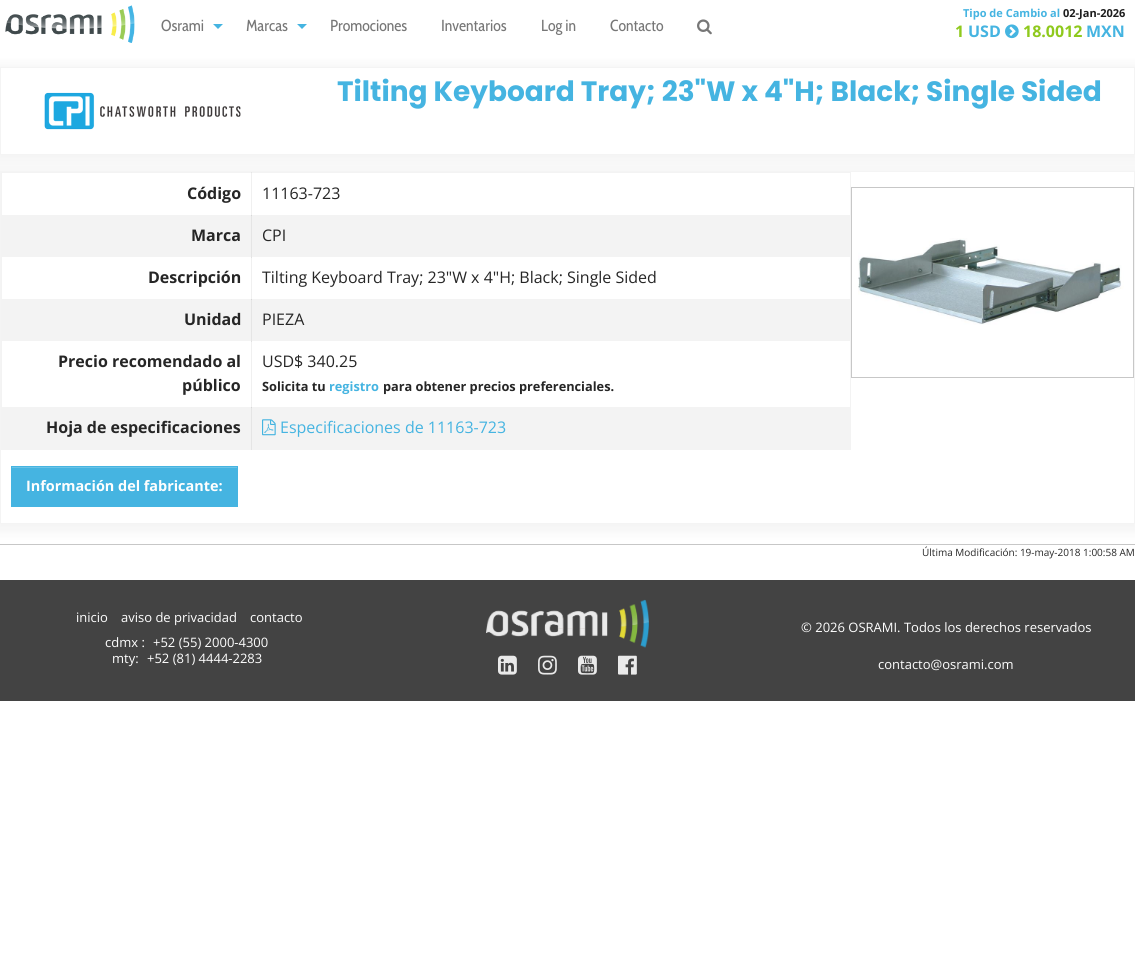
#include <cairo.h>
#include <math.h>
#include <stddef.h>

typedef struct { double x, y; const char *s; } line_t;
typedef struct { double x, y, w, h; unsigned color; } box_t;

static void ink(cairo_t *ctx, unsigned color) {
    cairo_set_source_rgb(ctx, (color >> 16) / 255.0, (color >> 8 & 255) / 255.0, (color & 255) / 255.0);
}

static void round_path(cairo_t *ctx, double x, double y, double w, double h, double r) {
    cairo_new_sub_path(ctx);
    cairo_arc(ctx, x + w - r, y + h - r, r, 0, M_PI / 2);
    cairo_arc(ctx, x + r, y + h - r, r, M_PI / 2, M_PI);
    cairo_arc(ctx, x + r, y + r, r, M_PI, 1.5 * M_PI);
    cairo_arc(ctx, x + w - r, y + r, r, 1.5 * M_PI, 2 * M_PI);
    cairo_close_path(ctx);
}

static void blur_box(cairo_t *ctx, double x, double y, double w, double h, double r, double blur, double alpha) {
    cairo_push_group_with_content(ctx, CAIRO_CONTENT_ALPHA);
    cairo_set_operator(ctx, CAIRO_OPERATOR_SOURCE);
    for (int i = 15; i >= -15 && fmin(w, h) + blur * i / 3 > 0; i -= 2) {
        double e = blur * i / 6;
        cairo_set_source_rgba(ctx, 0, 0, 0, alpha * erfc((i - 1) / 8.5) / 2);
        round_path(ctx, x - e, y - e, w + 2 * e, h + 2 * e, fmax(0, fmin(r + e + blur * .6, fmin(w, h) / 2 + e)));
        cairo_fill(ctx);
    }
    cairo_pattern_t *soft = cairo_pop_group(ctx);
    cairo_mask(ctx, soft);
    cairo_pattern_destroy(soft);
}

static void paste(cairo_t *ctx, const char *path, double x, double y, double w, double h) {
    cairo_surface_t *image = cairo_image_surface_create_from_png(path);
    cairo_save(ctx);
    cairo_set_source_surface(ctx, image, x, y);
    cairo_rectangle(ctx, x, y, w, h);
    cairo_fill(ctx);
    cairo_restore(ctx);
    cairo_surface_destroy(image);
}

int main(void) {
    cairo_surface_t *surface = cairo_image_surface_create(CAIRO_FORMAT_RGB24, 1135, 956);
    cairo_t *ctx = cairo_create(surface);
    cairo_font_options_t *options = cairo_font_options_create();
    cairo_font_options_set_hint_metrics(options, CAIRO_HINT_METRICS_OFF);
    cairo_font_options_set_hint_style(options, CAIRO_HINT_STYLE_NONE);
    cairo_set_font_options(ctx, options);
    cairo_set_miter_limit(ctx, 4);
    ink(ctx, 0xFFFFFF);
    cairo_paint(ctx);
    {
        static const box_t items[] = {
            {251, 257, 1, 43, 0xF0F0F0},
            {251, 257, 1, 1, 0xE2E2E2},
            {251, 341, 1, 67, 0xF0F0F0},
            {251, 341, 1, 1, 0xE2E2E2},
        };
        for (size_t i = 0; i < sizeof items / sizeof *items; i++) {
            ink(ctx, items[i].color);
            cairo_rectangle(ctx, items[i].x, items[i].y, items[i].w, items[i].h);
            cairo_fill(ctx);
        }
    }
    paste(ctx, "media/1.png", 5, 5, 130, 38);
    cairo_select_font_face(ctx, "Cabin Condensed", CAIRO_FONT_SLANT_NORMAL, CAIRO_FONT_WEIGHT_NORMAL);
    cairo_set_font_size(ctx, 16);
    ink(ctx, 0x777777);
    cairo_move_to(ctx, 161, 31);
    cairo_show_text(ctx, "Osrami");
    ink(ctx, 0x45B4E1);
    cairo_new_path(ctx);
    cairo_move_to(ctx, 213, 24);
    cairo_line_to(ctx, 223, 24);
    cairo_line_to(ctx, 218, 29);
    cairo_close_path(ctx);
    cairo_fill(ctx);
    ink(ctx, 0x777777);
    cairo_move_to(ctx, 246, 31);
    cairo_show_text(ctx, "Marcas");
    ink(ctx, 0x45B4E1);
    cairo_new_path(ctx);
    cairo_move_to(ctx, 297, 24);
    cairo_line_to(ctx, 307, 24);
    cairo_line_to(ctx, 302, 29);
    cairo_close_path(ctx);
    cairo_fill(ctx);
    ink(ctx, 0x777777);
    {
        static const line_t items[] = {
            {330, 31, "Promociones"},
            {441, 31, "Inventarios"},
            {541, 31, "Log in"},
            {610, 31, "Contacto"},
        };
        for (size_t i = 0; i < sizeof items / sizeof *items; i++) {
            cairo_move_to(ctx, items[i].x, items[i].y);
            cairo_show_text(ctx, items[i].s);
        }
    }
    paste(ctx, "media/2.png", 697, 19, 15, 16);
    cairo_select_font_face(ctx, "Open Sans", CAIRO_FONT_SLANT_NORMAL, CAIRO_FONT_WEIGHT_BOLD);
    cairo_set_font_size(ctx, 11);
    ink(ctx, 0x45B4E1);
    cairo_move_to(ctx, 963, 17);
    cairo_show_text(ctx, "Tipo de Cambio al");
    ink(ctx, 0x1D1D1D);
    cairo_move_to(ctx, 1063, 17);
    cairo_show_text(ctx, "02-Jan-2026");
    cairo_set_font_size(ctx, 16);
    ink(ctx, 0x8FC91D);
    cairo_move_to(ctx, 955, 37);
    cairo_show_text(ctx, "1");
    ink(ctx, 0x45B4E1);
    cairo_move_to(ctx, 968, 37);
    cairo_show_text(ctx, "USD");
    paste(ctx, "media/3.png", 1005, 24, 14, 15);
    ink(ctx, 0x8FC91D);
    cairo_move_to(ctx, 1023, 37);
    cairo_show_text(ctx, "18.0012");
    ink(ctx, 0x45B4E1);
    cairo_move_to(ctx, 1086, 37);
    cairo_show_text(ctx, "MXN");
    cairo_save(ctx);
    cairo_set_fill_rule(ctx, CAIRO_FILL_RULE_EVEN_ODD);
    cairo_new_path(ctx);
    cairo_move_to(ctx, 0, 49);
    cairo_line_to(ctx, 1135, 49);
    cairo_line_to(ctx, 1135, 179);
    cairo_line_to(ctx, 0, 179);
    cairo_close_path(ctx);
    cairo_move_to(ctx, 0, 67);
    cairo_line_to(ctx, 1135, 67);
    cairo_line_to(ctx, 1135, 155);
    cairo_line_to(ctx, 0, 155);
    cairo_close_path(ctx);
    cairo_clip(ctx);
    ink(ctx, 0x1D1D1D);
    blur_box(ctx, -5, 65, 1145, 98, 0, 5, 0.05);
    cairo_restore(ctx);
    cairo_rectangle(ctx, 0.5, 67.5, 1134, 87);
    ink(ctx, 0xF4F4F4);
    cairo_set_line_width(ctx, 1);
    cairo_stroke(ctx);
    paste(ctx, "media/4.png", 44, 92, 197, 38);
    cairo_select_font_face(ctx, "Poppins", CAIRO_FONT_SLANT_NORMAL, CAIRO_FONT_WEIGHT_BOLD);
    cairo_set_font_size(ctx, 28);
    ink(ctx, 0x45B4E1);
    cairo_move_to(ctx, 337, 101);
    cairo_show_text(ctx, "Tilting Keyboard Tray; 23\"W x 4\"H; Black; Single Sided");
    cairo_save(ctx);
    cairo_set_fill_rule(ctx, CAIRO_FILL_RULE_EVEN_ODD);
    cairo_new_path(ctx);
    cairo_move_to(ctx, 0, 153);
    cairo_line_to(ctx, 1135, 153);
    cairo_line_to(ctx, 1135, 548);
    cairo_line_to(ctx, 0, 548);
    cairo_close_path(ctx);
    cairo_move_to(ctx, 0, 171);
    cairo_line_to(ctx, 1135, 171);
    cairo_line_to(ctx, 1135, 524);
    cairo_line_to(ctx, 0, 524);
    cairo_close_path(ctx);
    cairo_clip(ctx);
    ink(ctx, 0x1D1D1D);
    blur_box(ctx, -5, 169, 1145, 363, 0, 5, 0.05);
    cairo_restore(ctx);
    cairo_rectangle(ctx, 0.5, 171.5, 1134, 352);
    ink(ctx, 0xF4F4F4);
    cairo_stroke(ctx);
    ink(ctx, 0xF3F3F3);
    cairo_rectangle(ctx, 1, 172, 850, 1);
    cairo_fill(ctx);
    cairo_rectangle(ctx, 850, 172, 1, 278);
    cairo_fill(ctx);
    cairo_rectangle(ctx, 1, 449, 850, 1);
    cairo_fill(ctx);
    cairo_rectangle(ctx, 1, 172, 1, 278);
    cairo_fill(ctx);
    cairo_rectangle(ctx, 2, 215, 848, 42);
    cairo_fill(ctx);
    ink(ctx, 0xE5E5E5);
    cairo_rectangle(ctx, 251, 215, 1, 42);
    cairo_fill(ctx);
    cairo_set_source_rgba(ctx, 0.263, 0.263, 0.263, 0.08);
    cairo_rectangle(ctx, 251, 172, 1, 44);
    cairo_fill(ctx);
    cairo_select_font_face(ctx, "Open Sans", CAIRO_FONT_SLANT_NORMAL, CAIRO_FONT_WEIGHT_BOLD);
    cairo_set_font_size(ctx, 16);
    ink(ctx, 0x262626);
    cairo_move_to(ctx, 187, 199);
    cairo_show_text(ctx, "Código");
    cairo_select_font_face(ctx, "Open Sans", CAIRO_FONT_SLANT_NORMAL, CAIRO_FONT_WEIGHT_NORMAL);
    cairo_move_to(ctx, 262, 199);
    cairo_show_text(ctx, "11163-723");
    cairo_select_font_face(ctx, "Open Sans", CAIRO_FONT_SLANT_NORMAL, CAIRO_FONT_WEIGHT_BOLD);
    cairo_move_to(ctx, 191, 241);
    cairo_show_text(ctx, "Marca");
    cairo_select_font_face(ctx, "Open Sans", CAIRO_FONT_SLANT_NORMAL, CAIRO_FONT_WEIGHT_NORMAL);
    cairo_move_to(ctx, 262, 241);
    cairo_show_text(ctx, "CPI");
    cairo_select_font_face(ctx, "Open Sans", CAIRO_FONT_SLANT_NORMAL, CAIRO_FONT_WEIGHT_BOLD);
    cairo_move_to(ctx, 148, 283);
    cairo_show_text(ctx, "Descripción");
    cairo_select_font_face(ctx, "Open Sans", CAIRO_FONT_SLANT_NORMAL, CAIRO_FONT_WEIGHT_NORMAL);
    cairo_move_to(ctx, 262, 283);
    cairo_show_text(ctx, "Tilting Keyboard Tray; 23\"W x 4\"H; Black; Single Sided");
    {
        static const box_t items[] = {
            {2, 299, 848, 42, 0xF3F3F3},
            {251, 299, 1, 42, 0xE5E5E5},
            {251, 299, 1, 1, 0xD8D8D8},
        };
        for (size_t i = 0; i < sizeof items / sizeof *items; i++) {
            ink(ctx, items[i].color);
            cairo_rectangle(ctx, items[i].x, items[i].y, items[i].w, items[i].h);
            cairo_fill(ctx);
        }
    }
    cairo_select_font_face(ctx, "Open Sans", CAIRO_FONT_SLANT_NORMAL, CAIRO_FONT_WEIGHT_BOLD);
    ink(ctx, 0x262626);
    cairo_move_to(ctx, 184, 325);
    cairo_show_text(ctx, "Unidad");
    cairo_select_font_face(ctx, "Open Sans", CAIRO_FONT_SLANT_NORMAL, CAIRO_FONT_WEIGHT_NORMAL);
    cairo_move_to(ctx, 262, 325);
    cairo_show_text(ctx, "PIEZA");
    cairo_select_font_face(ctx, "Open Sans", CAIRO_FONT_SLANT_NORMAL, CAIRO_FONT_WEIGHT_BOLD);
    cairo_move_to(ctx, 58, 367);
    cairo_show_text(ctx, "Precio recomendado al");
    cairo_move_to(ctx, 182, 391);
    cairo_show_text(ctx, "público");
    cairo_select_font_face(ctx, "Open Sans", CAIRO_FONT_SLANT_NORMAL, CAIRO_FONT_WEIGHT_NORMAL);
    cairo_move_to(ctx, 262, 367);
    cairo_show_text(ctx, "USD$ 340.25");
    cairo_select_font_face(ctx, "Open Sans", CAIRO_FONT_SLANT_NORMAL, CAIRO_FONT_WEIGHT_BOLD);
    cairo_set_font_size(ctx, 12.75);
    cairo_move_to(ctx, 262, 391);
    cairo_show_text(ctx, "Solicita tu");
    ink(ctx, 0x45B4E1);
    cairo_move_to(ctx, 329, 391);
    cairo_show_text(ctx, "registro");
    ink(ctx, 0x262626);
    cairo_move_to(ctx, 383, 391);
    cairo_show_text(ctx, "para obtener precios preferenciales.");
    {
        static const box_t items[] = {
            {2, 407, 848, 42, 0xF3F3F3},
            {251, 407, 1, 43, 0xE5E5E5},
            {251, 407, 1, 1, 0xD8D8D8},
        };
        for (size_t i = 0; i < sizeof items / sizeof *items; i++) {
            ink(ctx, items[i].color);
            cairo_rectangle(ctx, items[i].x, items[i].y, items[i].w, items[i].h);
            cairo_fill(ctx);
        }
    }
    cairo_set_font_size(ctx, 16);
    ink(ctx, 0x262626);
    cairo_move_to(ctx, 46, 433);
    cairo_show_text(ctx, "Hoja de especificaciones");
    paste(ctx, "media/5.png", 262, 419, 14, 17);
    cairo_select_font_face(ctx, "Open Sans", CAIRO_FONT_SLANT_NORMAL, CAIRO_FONT_WEIGHT_NORMAL);
    ink(ctx, 0x45B4E1);
    cairo_move_to(ctx, 280, 433);
    cairo_show_text(ctx, "Especificaciones de 11163-723");
    cairo_rectangle(ctx, 11, 466, 227, 41);
    cairo_fill(ctx);
    ink(ctx, 0x6AC3E7);
    cairo_rectangle(ctx, 12, 467, 225, 1);
    cairo_fill(ctx);
    cairo_select_font_face(ctx, "Open Sans", CAIRO_FONT_SLANT_NORMAL, CAIRO_FONT_WEIGHT_BOLD);
    cairo_set_font_size(ctx, 14.4);
    ink(ctx, 0xFEFEFE);
    cairo_move_to(ctx, 26, 491);
    cairo_show_text(ctx, "Información del fabricante:");
    cairo_rectangle(ctx, 851.5, 187.5, 282, 190);
    ink(ctx, 0xC7C7C7);
    cairo_stroke(ctx);
    paste(ctx, "media/6.png", 858, 238, 266, 87);
    cairo_rectangle(ctx, 0, 544, 1135, 1);
    cairo_fill(ctx);
    cairo_select_font_face(ctx, "Open Sans", CAIRO_FONT_SLANT_NORMAL, CAIRO_FONT_WEIGHT_NORMAL);
    cairo_set_font_size(ctx, 10);
    ink(ctx, 0x262626);
    cairo_move_to(ctx, 922, 556);
    cairo_show_text(ctx, "Última Modificación: 19-may-2018 1:00:58 AM");
    ink(ctx, 0x434343);
    cairo_rectangle(ctx, 0, 580, 1135, 121);
    cairo_fill(ctx);
    cairo_set_font_size(ctx, 13);
    ink(ctx, 0xFEFEFE);
    {
        static const line_t items[] = {
            {76, 622, "inicio"},
            {121, 622, "aviso de privacidad"},
            {250, 622, "contacto"},
            {105, 647, "cdmx :"},
            {153, 647, "+52 (55) 2000-4300"},
            {112, 663, "mty:"},
            {147, 663, "+52 (81) 4444-2283"},
        };
        for (size_t i = 0; i < sizeof items / sizeof *items; i++) {
            cairo_move_to(ctx, items[i].x, items[i].y);
            cairo_show_text(ctx, items[i].s);
        }
    }
    paste(ctx, "media/7.png", 486, 599, 163, 49);
    paste(ctx, "media/8.png", 498, 655, 19, 20);
    paste(ctx, "media/9.png", 538, 655, 19, 20);
    paste(ctx, "media/10.png", 578, 655, 19, 20);
    paste(ctx, "media/11.png", 618, 655, 19, 20);
    cairo_move_to(ctx, 801, 632);
    cairo_show_text(ctx, "© 2026 OSRAMI. Todos los derechos reservados");
    cairo_move_to(ctx, 878, 669);
    cairo_show_text(ctx, "contacto@osrami.com");
    cairo_surface_write_to_png(surface, "image.png");
    cairo_font_options_destroy(options);
    cairo_destroy(ctx);
    cairo_surface_destroy(surface);
    return 0;
}
